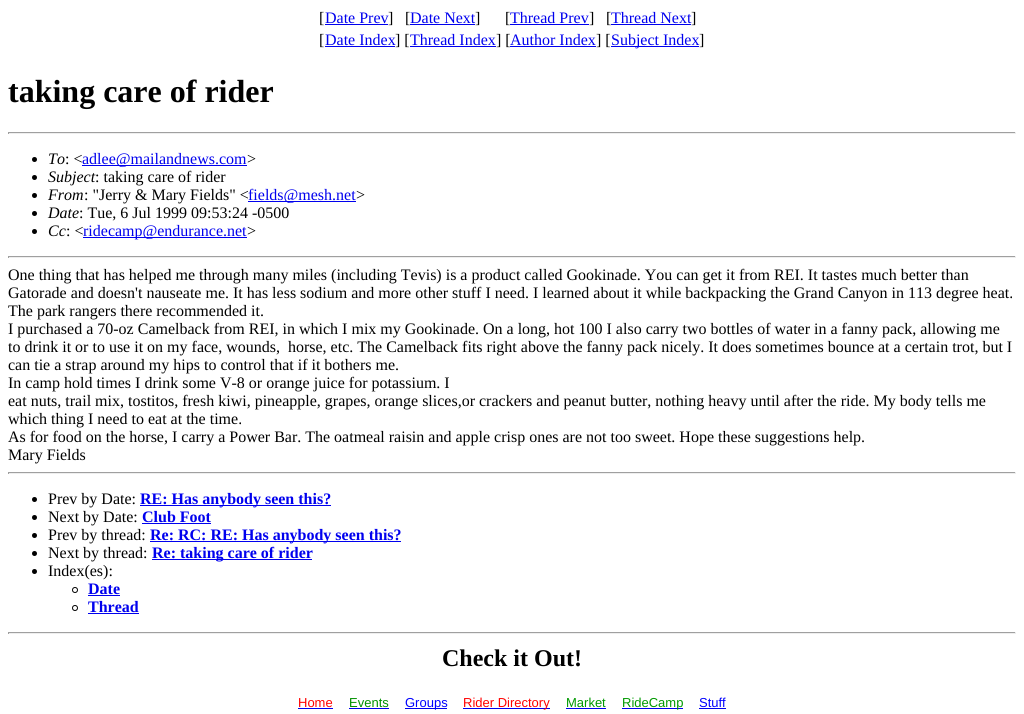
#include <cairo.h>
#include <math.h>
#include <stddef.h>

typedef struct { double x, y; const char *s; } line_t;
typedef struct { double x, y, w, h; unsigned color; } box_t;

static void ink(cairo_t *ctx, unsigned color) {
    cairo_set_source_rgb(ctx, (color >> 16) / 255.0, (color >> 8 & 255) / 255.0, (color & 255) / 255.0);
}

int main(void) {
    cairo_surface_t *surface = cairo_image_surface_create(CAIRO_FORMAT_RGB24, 1024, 714);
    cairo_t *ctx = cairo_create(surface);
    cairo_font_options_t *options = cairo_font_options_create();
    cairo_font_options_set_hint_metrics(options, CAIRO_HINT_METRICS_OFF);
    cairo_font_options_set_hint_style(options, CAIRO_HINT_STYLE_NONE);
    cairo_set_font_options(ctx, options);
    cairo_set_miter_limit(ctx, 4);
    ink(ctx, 0xFFFFFF);
    cairo_paint(ctx);
    cairo_select_font_face(ctx, "Liberation Serif", CAIRO_FONT_SLANT_NORMAL, CAIRO_FONT_WEIGHT_NORMAL);
    cairo_set_font_size(ctx, 16);
    ink(ctx, 0x000000);
    cairo_move_to(ctx, 319, 23);
    cairo_show_text(ctx, "[");
    ink(ctx, 0x0000EE);
    cairo_move_to(ctx, 325, 23);
    cairo_show_text(ctx, "Date Prev");
    cairo_rectangle(ctx, 325, 24, 63, 1);
    cairo_fill(ctx);
    ink(ctx, 0x000000);
    cairo_move_to(ctx, 388, 23);
    cairo_show_text(ctx, "]");
    cairo_move_to(ctx, 405, 23);
    cairo_show_text(ctx, "[");
    ink(ctx, 0x0000EE);
    cairo_move_to(ctx, 410, 23);
    cairo_show_text(ctx, "Date Next");
    cairo_rectangle(ctx, 410, 24, 65, 1);
    cairo_fill(ctx);
    ink(ctx, 0x000000);
    cairo_move_to(ctx, 475, 23);
    cairo_show_text(ctx, "]");
    cairo_move_to(ctx, 505, 23);
    cairo_show_text(ctx, "[");
    ink(ctx, 0x0000EE);
    cairo_move_to(ctx, 510, 23);
    cairo_show_text(ctx, "Thread Prev");
    cairo_rectangle(ctx, 510, 24, 79, 1);
    cairo_fill(ctx);
    ink(ctx, 0x000000);
    cairo_move_to(ctx, 589, 23);
    cairo_show_text(ctx, "]");
    cairo_move_to(ctx, 606, 23);
    cairo_show_text(ctx, "[");
    ink(ctx, 0x0000EE);
    cairo_move_to(ctx, 611, 23);
    cairo_show_text(ctx, "Thread Next");
    cairo_rectangle(ctx, 611, 24, 80, 1);
    cairo_fill(ctx);
    ink(ctx, 0x000000);
    cairo_move_to(ctx, 691, 23);
    cairo_show_text(ctx, "]");
    cairo_move_to(ctx, 319, 45);
    cairo_show_text(ctx, "[");
    ink(ctx, 0x0000EE);
    cairo_move_to(ctx, 325, 45);
    cairo_show_text(ctx, "Date Index");
    cairo_rectangle(ctx, 325, 46, 70, 1);
    cairo_fill(ctx);
    ink(ctx, 0x000000);
    cairo_move_to(ctx, 395, 45);
    cairo_show_text(ctx, "] [");
    ink(ctx, 0x0000EE);
    cairo_move_to(ctx, 410, 45);
    cairo_show_text(ctx, "Thread Index");
    cairo_rectangle(ctx, 410, 46, 86, 1);
    cairo_fill(ctx);
    ink(ctx, 0x000000);
    cairo_move_to(ctx, 496, 45);
    cairo_show_text(ctx, "] [");
    ink(ctx, 0x0000EE);
    cairo_move_to(ctx, 510, 45);
    cairo_show_text(ctx, "Author Index");
    cairo_rectangle(ctx, 510, 46, 86, 1);
    cairo_fill(ctx);
    ink(ctx, 0x000000);
    cairo_move_to(ctx, 596, 45);
    cairo_show_text(ctx, "] [");
    ink(ctx, 0x0000EE);
    cairo_rectangle(ctx, 611, 46, 88, 1);
    cairo_fill(ctx);
    cairo_move_to(ctx, 611, 45);
    cairo_show_text(ctx, "Subject Index");
    ink(ctx, 0x000000);
    cairo_move_to(ctx, 699, 45);
    cairo_show_text(ctx, "]");
    cairo_select_font_face(ctx, "Liberation Serif", CAIRO_FONT_SLANT_NORMAL, CAIRO_FONT_WEIGHT_BOLD);
    cairo_set_font_size(ctx, 32);
    cairo_move_to(ctx, 8, 102);
    cairo_show_text(ctx, "taking care of rider");
    {
        static const box_t items[] = {
            {8, 132, 1008, 1, 0x9F9F9F},
            {1015, 132, 1, 2, 0xEEEEEE},
            {8, 133, 1008, 1, 0xEEEEEE},
            {8, 132, 1, 2, 0x9F9F9F},
        };
        for (size_t i = 0; i < sizeof items / sizeof *items; i++) {
            ink(ctx, items[i].color);
            cairo_rectangle(ctx, items[i].x, items[i].y, items[i].w, items[i].h);
            cairo_fill(ctx);
        }
    }
    ink(ctx, 0x000000);
    cairo_new_path(ctx);
    cairo_arc(ctx, 34.5, 159.5, 2.5, 0, 2 * M_PI);
    cairo_fill(ctx);
    cairo_select_font_face(ctx, "Liberation Serif", CAIRO_FONT_SLANT_ITALIC, CAIRO_FONT_WEIGHT_NORMAL);
    cairo_set_font_size(ctx, 16);
    cairo_move_to(ctx, 48, 164);
    cairo_show_text(ctx, "To");
    cairo_select_font_face(ctx, "Liberation Serif", CAIRO_FONT_SLANT_NORMAL, CAIRO_FONT_WEIGHT_NORMAL);
    cairo_move_to(ctx, 65, 164);
    cairo_show_text(ctx, ": <");
    ink(ctx, 0x0000EE);
    cairo_rectangle(ctx, 82, 165, 165, 1);
    cairo_fill(ctx);
    cairo_move_to(ctx, 82, 164);
    cairo_show_text(ctx, "adlee@mailandnews.com");
    ink(ctx, 0x000000);
    cairo_move_to(ctx, 247, 164);
    cairo_show_text(ctx, ">");
    cairo_new_path(ctx);
    cairo_arc(ctx, 34.5, 177.5, 2.5, 0, 2 * M_PI);
    cairo_fill(ctx);
    cairo_select_font_face(ctx, "Liberation Serif", CAIRO_FONT_SLANT_ITALIC, CAIRO_FONT_WEIGHT_NORMAL);
    cairo_move_to(ctx, 48, 182);
    cairo_show_text(ctx, "Subject");
    cairo_select_font_face(ctx, "Liberation Serif", CAIRO_FONT_SLANT_NORMAL, CAIRO_FONT_WEIGHT_NORMAL);
    cairo_move_to(ctx, 95, 182);
    cairo_show_text(ctx, ": taking care of rider");
    cairo_new_path(ctx);
    cairo_arc(ctx, 34.5, 195.5, 2.5, 0, 2 * M_PI);
    cairo_fill(ctx);
    cairo_select_font_face(ctx, "Liberation Serif", CAIRO_FONT_SLANT_ITALIC, CAIRO_FONT_WEIGHT_NORMAL);
    cairo_move_to(ctx, 48, 200);
    cairo_show_text(ctx, "From");
    cairo_select_font_face(ctx, "Liberation Serif", CAIRO_FONT_SLANT_NORMAL, CAIRO_FONT_WEIGHT_NORMAL);
    cairo_move_to(ctx, 84, 200);
    cairo_show_text(ctx, ": \"Jerry & Mary Fields\" <");
    ink(ctx, 0x0000EE);
    cairo_rectangle(ctx, 248, 201, 108, 1);
    cairo_fill(ctx);
    cairo_move_to(ctx, 248, 200);
    cairo_show_text(ctx, "fields@mesh.net");
    ink(ctx, 0x000000);
    cairo_move_to(ctx, 356, 200);
    cairo_show_text(ctx, ">");
    cairo_new_path(ctx);
    cairo_arc(ctx, 34.5, 213.5, 2.5, 0, 2 * M_PI);
    cairo_fill(ctx);
    cairo_select_font_face(ctx, "Liberation Serif", CAIRO_FONT_SLANT_ITALIC, CAIRO_FONT_WEIGHT_NORMAL);
    cairo_move_to(ctx, 48, 218);
    cairo_show_text(ctx, "Date");
    cairo_select_font_face(ctx, "Liberation Serif", CAIRO_FONT_SLANT_NORMAL, CAIRO_FONT_WEIGHT_NORMAL);
    cairo_move_to(ctx, 79, 218);
    cairo_show_text(ctx, ": Tue, 6 Jul 1999 09:53:24 -0500");
    cairo_new_path(ctx);
    cairo_arc(ctx, 34.5, 231.5, 2.5, 0, 2 * M_PI);
    cairo_fill(ctx);
    cairo_select_font_face(ctx, "Liberation Serif", CAIRO_FONT_SLANT_ITALIC, CAIRO_FONT_WEIGHT_NORMAL);
    cairo_move_to(ctx, 48, 236);
    cairo_show_text(ctx, "Cc");
    cairo_select_font_face(ctx, "Liberation Serif", CAIRO_FONT_SLANT_NORMAL, CAIRO_FONT_WEIGHT_NORMAL);
    cairo_move_to(ctx, 66, 236);
    cairo_show_text(ctx, ": <");
    ink(ctx, 0x0000EE);
    cairo_rectangle(ctx, 83, 237, 164, 1);
    cairo_fill(ctx);
    cairo_move_to(ctx, 83, 236);
    cairo_show_text(ctx, "ridecamp@endurance.net");
    ink(ctx, 0x000000);
    cairo_move_to(ctx, 247, 236);
    cairo_show_text(ctx, ">");
    {
        static const box_t items[] = {
            {8, 256, 1008, 1, 0x9F9F9F},
            {1015, 256, 1, 2, 0xEEEEEE},
            {8, 257, 1008, 1, 0xEEEEEE},
            {8, 256, 1, 2, 0x9F9F9F},
        };
        for (size_t i = 0; i < sizeof items / sizeof *items; i++) {
            ink(ctx, items[i].color);
            cairo_rectangle(ctx, items[i].x, items[i].y, items[i].w, items[i].h);
            cairo_fill(ctx);
        }
    }
    ink(ctx, 0x000000);
    {
        static const line_t items[] = {
            {8, 280, "One thing that has helped me through many miles (including Tevis) is a product called Gookinade. You can get it from REI. It tastes much better than"},
            {8, 298, "Gatorade and doesn't nauseate me. It has less sodium and more other stuff I need. I learned about it while backpacking the Grand Canyon in 113 degree heat."},
            {8, 316, "The park rangers there recommended it."},
            {8, 334, "I purchased a 70-oz Camelback from REI, in which I mix my Gookinade. On a long, hot 100 I also carry two bottles of water in a fanny pack, allowing me"},
            {8, 352, "to drink it or to use it on my face, wounds,  horse, etc. The Camelback fits right above the fanny pack nicely. It does sometimes bounce at a certain trot, but I"},
            {8, 370, "can tie a strap around my hips to control that if it bothers me."},
            {8, 388, "In camp hold times I drink some V-8 or orange juice for potassium. I"},
            {8, 406, "eat nuts, trail mix, tostitos, fresh kiwi, pineapple, grapes, orange slices,or crackers and peanut butter, nothing heavy until after the ride. My body tells me"},
            {8, 424, "which thing I need to eat at the time."},
            {8, 442, "As for food on the horse, I carry a Power Bar. The oatmeal raisin and apple crisp ones are not too sweet. Hope these suggestions help."},
            {8, 460, "Mary Fields"},
        };
        for (size_t i = 0; i < sizeof items / sizeof *items; i++) {
            cairo_move_to(ctx, items[i].x, items[i].y);
            cairo_show_text(ctx, items[i].s);
        }
    }
    {
        static const box_t items[] = {
            {8, 472, 1008, 1, 0x9F9F9F},
            {1015, 472, 1, 2, 0xEEEEEE},
            {8, 473, 1008, 1, 0xEEEEEE},
            {8, 472, 1, 2, 0x9F9F9F},
        };
        for (size_t i = 0; i < sizeof items / sizeof *items; i++) {
            ink(ctx, items[i].color);
            cairo_rectangle(ctx, items[i].x, items[i].y, items[i].w, items[i].h);
            cairo_fill(ctx);
        }
    }
    ink(ctx, 0x000000);
    cairo_new_path(ctx);
    cairo_arc(ctx, 34.5, 499.5, 2.5, 0, 2 * M_PI);
    cairo_fill(ctx);
    cairo_move_to(ctx, 48, 504);
    cairo_show_text(ctx, "Prev by Date:");
    ink(ctx, 0x0000EE);
    cairo_rectangle(ctx, 140, 505, 191, 1);
    cairo_fill(ctx);
    cairo_select_font_face(ctx, "Liberation Serif", CAIRO_FONT_SLANT_NORMAL, CAIRO_FONT_WEIGHT_BOLD);
    cairo_move_to(ctx, 140, 504);
    cairo_show_text(ctx, "RE: Has anybody seen this?");
    ink(ctx, 0x000000);
    cairo_new_path(ctx);
    cairo_arc(ctx, 34.5, 517.5, 2.5, 0, 2 * M_PI);
    cairo_fill(ctx);
    cairo_select_font_face(ctx, "Liberation Serif", CAIRO_FONT_SLANT_NORMAL, CAIRO_FONT_WEIGHT_NORMAL);
    cairo_move_to(ctx, 48, 522);
    cairo_show_text(ctx, "Next by Date:");
    cairo_select_font_face(ctx, "Liberation Serif", CAIRO_FONT_SLANT_NORMAL, CAIRO_FONT_WEIGHT_BOLD);
    ink(ctx, 0x0000EE);
    cairo_move_to(ctx, 142, 522);
    cairo_show_text(ctx, "Club Foot");
    cairo_rectangle(ctx, 142, 523, 69, 1);
    cairo_fill(ctx);
    ink(ctx, 0x000000);
    cairo_arc(ctx, 34.5, 535.5, 2.5, 0, 2 * M_PI);
    cairo_fill(ctx);
    cairo_select_font_face(ctx, "Liberation Serif", CAIRO_FONT_SLANT_NORMAL, CAIRO_FONT_WEIGHT_NORMAL);
    cairo_move_to(ctx, 48, 540);
    cairo_show_text(ctx, "Prev by thread:");
    ink(ctx, 0x0000EE);
    cairo_rectangle(ctx, 150, 541, 251, 1);
    cairo_fill(ctx);
    cairo_select_font_face(ctx, "Liberation Serif", CAIRO_FONT_SLANT_NORMAL, CAIRO_FONT_WEIGHT_BOLD);
    cairo_move_to(ctx, 150, 540);
    cairo_show_text(ctx, "Re: RC: RE: Has anybody seen this?");
    ink(ctx, 0x000000);
    cairo_new_path(ctx);
    cairo_arc(ctx, 34.5, 553.5, 2.5, 0, 2 * M_PI);
    cairo_fill(ctx);
    cairo_select_font_face(ctx, "Liberation Serif", CAIRO_FONT_SLANT_NORMAL, CAIRO_FONT_WEIGHT_NORMAL);
    cairo_move_to(ctx, 48, 558);
    cairo_show_text(ctx, "Next by thread:");
    ink(ctx, 0x0000EE);
    cairo_rectangle(ctx, 152, 559, 160, 1);
    cairo_fill(ctx);
    cairo_select_font_face(ctx, "Liberation Serif", CAIRO_FONT_SLANT_NORMAL, CAIRO_FONT_WEIGHT_BOLD);
    cairo_move_to(ctx, 152, 558);
    cairo_show_text(ctx, "Re: taking care of rider");
    ink(ctx, 0x000000);
    cairo_new_path(ctx);
    cairo_arc(ctx, 34.5, 571.5, 2.5, 0, 2 * M_PI);
    cairo_fill(ctx);
    cairo_select_font_face(ctx, "Liberation Serif", CAIRO_FONT_SLANT_NORMAL, CAIRO_FONT_WEIGHT_NORMAL);
    cairo_move_to(ctx, 48, 576);
    cairo_show_text(ctx, "Index(es):");
    cairo_new_path(ctx);
    cairo_arc(ctx, 75, 590, 2.5, 0, 2 * M_PI);
    cairo_set_line_width(ctx, 1);
    cairo_stroke(ctx);
    cairo_select_font_face(ctx, "Liberation Serif", CAIRO_FONT_SLANT_NORMAL, CAIRO_FONT_WEIGHT_BOLD);
    ink(ctx, 0x0000EE);
    cairo_move_to(ctx, 88, 594);
    cairo_show_text(ctx, "Date");
    cairo_rectangle(ctx, 88, 595, 32, 1);
    cairo_fill(ctx);
    cairo_arc(ctx, 75, 608, 2.5, 0, 2 * M_PI);
    ink(ctx, 0x000000);
    cairo_stroke(ctx);
    ink(ctx, 0x0000EE);
    cairo_move_to(ctx, 88, 612);
    cairo_show_text(ctx, "Thread");
    {
        static const box_t items[] = {
            {88, 613, 51, 1, 0x0000EE},
            {8, 632, 1008, 1, 0x9F9F9F},
            {1015, 632, 1, 2, 0xEEEEEE},
            {8, 633, 1008, 1, 0xEEEEEE},
            {8, 632, 1, 2, 0x9F9F9F},
        };
        for (size_t i = 0; i < sizeof items / sizeof *items; i++) {
            ink(ctx, items[i].color);
            cairo_rectangle(ctx, items[i].x, items[i].y, items[i].w, items[i].h);
            cairo_fill(ctx);
        }
    }
    cairo_set_font_size(ctx, 24);
    ink(ctx, 0x000000);
    cairo_move_to(ctx, 442, 666);
    cairo_show_text(ctx, "Check it Out!");
    cairo_select_font_face(ctx, "Liberation Sans", CAIRO_FONT_SLANT_NORMAL, CAIRO_FONT_WEIGHT_NORMAL);
    cairo_set_font_size(ctx, 13);
    ink(ctx, 0xFF0000);
    cairo_move_to(ctx, 298, 707);
    cairo_show_text(ctx, "Home");
    ink(ctx, 0x0000EE);
    cairo_rectangle(ctx, 298, 708, 35, 1);
    cairo_fill(ctx);
    ink(ctx, 0x009000);
    cairo_move_to(ctx, 349, 707);
    cairo_show_text(ctx, "Events");
    ink(ctx, 0x0000EE);
    cairo_rectangle(ctx, 349, 708, 40, 1);
    cairo_fill(ctx);
    cairo_rectangle(ctx, 405, 708, 42, 1);
    cairo_fill(ctx);
    ink(ctx, 0x0000FF);
    cairo_move_to(ctx, 405, 707);
    cairo_show_text(ctx, "Groups");
    ink(ctx, 0x0000EE);
    cairo_rectangle(ctx, 463, 708, 87, 1);
    cairo_fill(ctx);
    ink(ctx, 0xFF0000);
    cairo_move_to(ctx, 463, 707);
    cairo_show_text(ctx, "Rider Directory");
    ink(ctx, 0x009900);
    cairo_move_to(ctx, 566, 707);
    cairo_show_text(ctx, "Market");
    ink(ctx, 0x0000EE);
    cairo_rectangle(ctx, 566, 708, 40, 1);
    cairo_fill(ctx);
    cairo_rectangle(ctx, 622, 708, 61, 1);
    cairo_fill(ctx);
    ink(ctx, 0x009900);
    cairo_move_to(ctx, 622, 707);
    cairo_show_text(ctx, "RideCamp");
    ink(ctx, 0x0000FF);
    cairo_move_to(ctx, 699, 707);
    cairo_show_text(ctx, "Stuff");
    ink(ctx, 0x0000EE);
    cairo_rectangle(ctx, 699, 708, 27, 1);
    cairo_fill(ctx);
    cairo_surface_write_to_png(surface, "image.png");
    cairo_font_options_destroy(options);
    cairo_destroy(ctx);
    cairo_surface_destroy(surface);
    return 0;
}
